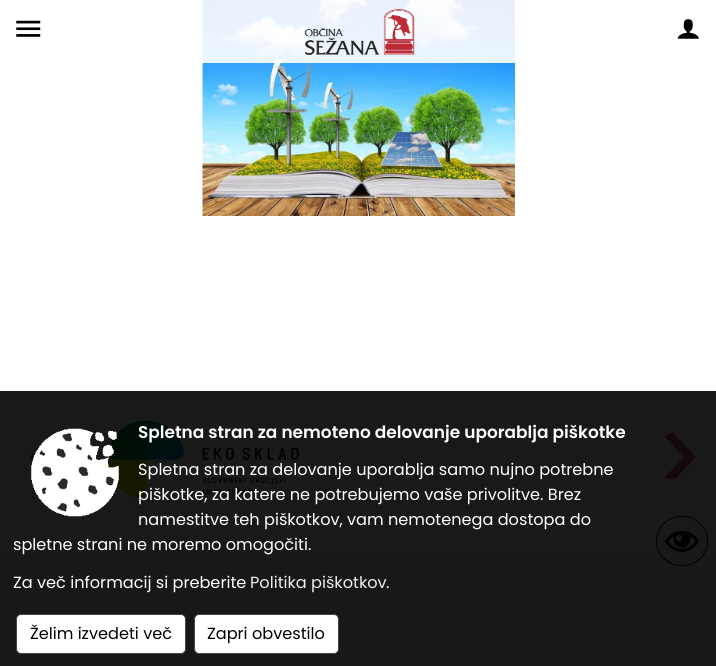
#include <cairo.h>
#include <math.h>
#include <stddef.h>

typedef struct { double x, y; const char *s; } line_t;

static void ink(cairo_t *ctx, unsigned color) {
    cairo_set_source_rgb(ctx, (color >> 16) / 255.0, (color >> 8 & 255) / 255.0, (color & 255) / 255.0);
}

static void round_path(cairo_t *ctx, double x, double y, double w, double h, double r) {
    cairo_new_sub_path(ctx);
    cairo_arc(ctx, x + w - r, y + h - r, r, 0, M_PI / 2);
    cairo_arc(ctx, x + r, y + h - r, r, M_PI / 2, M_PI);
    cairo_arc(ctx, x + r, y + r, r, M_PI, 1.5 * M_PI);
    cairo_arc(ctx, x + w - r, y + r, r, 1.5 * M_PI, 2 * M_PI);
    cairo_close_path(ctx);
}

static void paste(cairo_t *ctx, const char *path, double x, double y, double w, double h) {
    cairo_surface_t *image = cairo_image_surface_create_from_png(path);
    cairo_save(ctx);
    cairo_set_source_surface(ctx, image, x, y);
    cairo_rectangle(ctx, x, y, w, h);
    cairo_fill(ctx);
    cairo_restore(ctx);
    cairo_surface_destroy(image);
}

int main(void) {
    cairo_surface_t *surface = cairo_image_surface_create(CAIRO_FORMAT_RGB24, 716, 666);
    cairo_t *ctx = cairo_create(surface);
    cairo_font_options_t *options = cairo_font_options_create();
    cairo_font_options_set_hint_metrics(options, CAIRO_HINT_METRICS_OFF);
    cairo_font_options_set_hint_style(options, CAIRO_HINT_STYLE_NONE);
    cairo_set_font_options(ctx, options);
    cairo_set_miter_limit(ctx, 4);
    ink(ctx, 0xFFFFFF);
    cairo_paint(ctx);
    ink(ctx, 0x191919);
    cairo_rectangle(ctx, 0, 391, 716, 168);
    cairo_fill(ctx);
    paste(ctx, "media/3.png", 202, 0, 313, 216);
    cairo_set_source_rgba(ctx, 1, 1, 1, 0.9);
    cairo_rectangle(ctx, 202, 0, 313, 63);
    cairo_fill(ctx);
    paste(ctx, "media/1.png", 16, 20, 25, 17);
    paste(ctx, "media/2.png", 677, 19, 22, 20);
    paste(ctx, "media/4.png", 304, 9, 111, 46);
    ink(ctx, 0x14090A);
    cairo_new_path(ctx);
    cairo_move_to(ctx, 58, 440);
    cairo_line_to(ctx, 42, 457);
    cairo_line_to(ctx, 57, 473);
    cairo_curve_to(ctx, 55, 475, 53, 477, 50, 478);
    cairo_line_to(ctx, 30, 457);
    cairo_line_to(ctx, 51, 435);
    cairo_curve_to(ctx, 54, 436, 56, 438, 58, 440);
    cairo_close_path(ctx);
    cairo_fill(ctx);
    paste(ctx, "media/5.png", 107, 420, 193, 78);
    cairo_new_path(ctx);
    cairo_move_to(ctx, 665, 477);
    cairo_curve_to(ctx, 667, 479, 672, 479, 675, 479);
    cairo_line_to(ctx, 696, 457);
    cairo_line_to(ctx, 673, 433);
    cairo_line_to(ctx, 668, 434);
    cairo_line_to(ctx, 665, 437);
    cairo_line_to(ctx, 684, 457);
    cairo_close_path(ctx);
    cairo_fill(ctx);
    ink(ctx, 0x181818);
    cairo_rectangle(ctx, 0, 559, 716, 107);
    cairo_fill(ctx);
    cairo_select_font_face(ctx, "Poppins SemiBold", CAIRO_FONT_SLANT_NORMAL, CAIRO_FONT_WEIGHT_NORMAL);
    cairo_set_font_size(ctx, 16.95);
    ink(ctx, 0xFFFFFF);
    cairo_move_to(ctx, 138, 438);
    cairo_show_text(ctx, "Spletna stran za nemoteno delovanje uporablja piškotke");
    cairo_select_font_face(ctx, "Poppins", CAIRO_FONT_SLANT_NORMAL, CAIRO_FONT_WEIGHT_NORMAL);
    cairo_set_font_size(ctx, 16.15);
    {
        static const line_t items[] = {
            {138, 475, "Spletna stran za delovanje uporablja samo nujno potrebne"},
            {138, 500, "piškotke, za katere ne potrebujemo vaše privolitve. Brez"},
            {138, 525, "namestitve teh piškotkov, vam nemotenega dostopa do"},
            {13, 550, "spletne strani ne moremo omogočiti."},
            {13, 588, "Za več informacij si preberite"},
        };
        for (size_t i = 0; i < sizeof items / sizeof *items; i++) {
            cairo_move_to(ctx, items[i].x, items[i].y);
            cairo_show_text(ctx, items[i].s);
        }
    }
    ink(ctx, 0xEEEEEE);
    cairo_move_to(ctx, 250, 588);
    cairo_show_text(ctx, "Politika piškotkov");
    ink(ctx, 0xFFFFFF);
    cairo_move_to(ctx, 386, 588);
    cairo_show_text(ctx, ".");
    paste(ctx, "media/6.png", 31, 428, 88, 89);
    round_path(ctx, 16.5, 614.5, 169, 39, 4.5);
    cairo_fill_preserve(ctx);
    ink(ctx, 0x444444);
    cairo_set_line_width(ctx, 1);
    cairo_stroke(ctx);
    ink(ctx, 0x000000);
    cairo_move_to(ctx, 30, 639);
    cairo_show_text(ctx, "Želim izvedeti več");
    ink(ctx, 0xFFFFFF);
    round_path(ctx, 194.5, 614.5, 144, 39, 4.5);
    cairo_fill_preserve(ctx);
    ink(ctx, 0x444444);
    cairo_stroke(ctx);
    ink(ctx, 0x000000);
    cairo_move_to(ctx, 207, 639);
    cairo_show_text(ctx, "Zapri obvestilo");
    round_path(ctx, 656.5, 516.5, 51, 49, 24.5);
    ink(ctx, 0x020202);
    cairo_stroke(ctx);
    paste(ctx, "media/7.png", 665, 530, 34, 22);
    cairo_surface_write_to_png(surface, "image.png");
    cairo_font_options_destroy(options);
    cairo_destroy(ctx);
    cairo_surface_destroy(surface);
    return 0;
}
